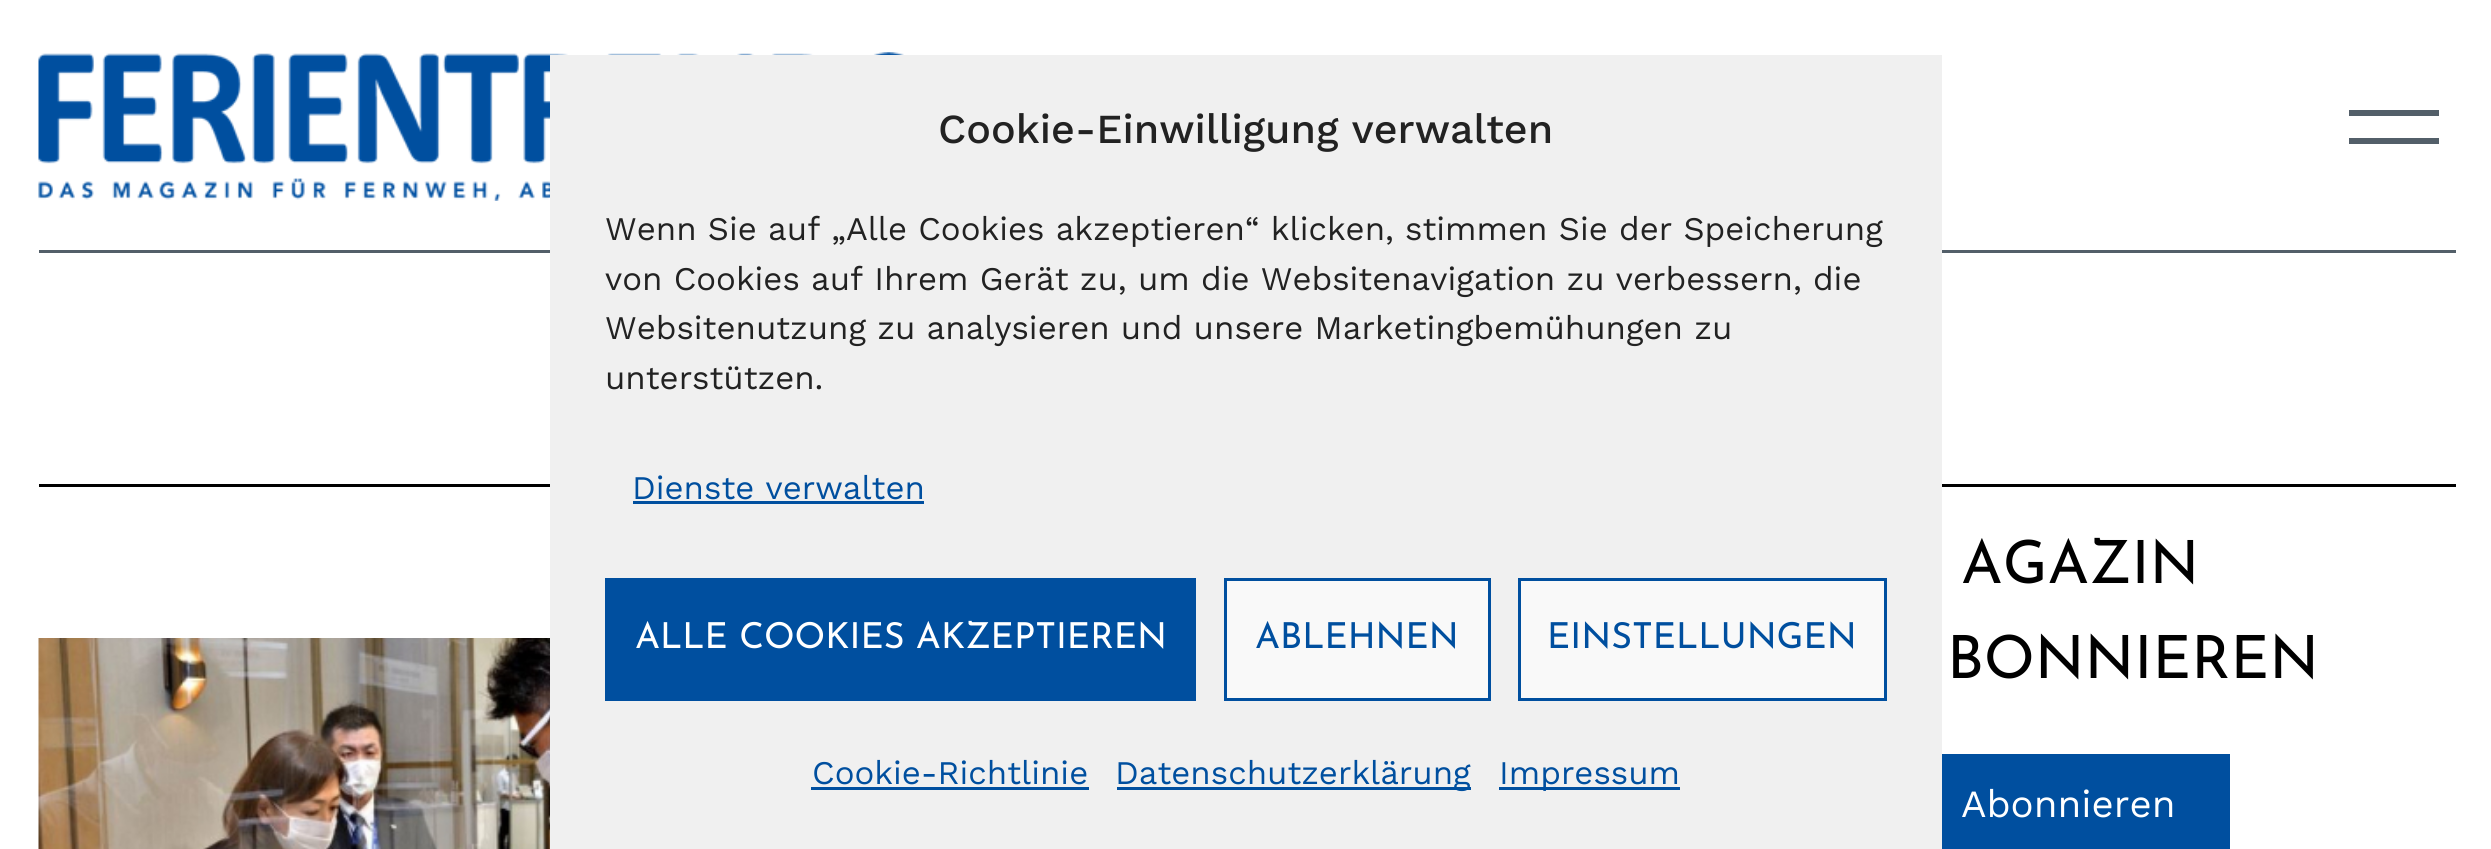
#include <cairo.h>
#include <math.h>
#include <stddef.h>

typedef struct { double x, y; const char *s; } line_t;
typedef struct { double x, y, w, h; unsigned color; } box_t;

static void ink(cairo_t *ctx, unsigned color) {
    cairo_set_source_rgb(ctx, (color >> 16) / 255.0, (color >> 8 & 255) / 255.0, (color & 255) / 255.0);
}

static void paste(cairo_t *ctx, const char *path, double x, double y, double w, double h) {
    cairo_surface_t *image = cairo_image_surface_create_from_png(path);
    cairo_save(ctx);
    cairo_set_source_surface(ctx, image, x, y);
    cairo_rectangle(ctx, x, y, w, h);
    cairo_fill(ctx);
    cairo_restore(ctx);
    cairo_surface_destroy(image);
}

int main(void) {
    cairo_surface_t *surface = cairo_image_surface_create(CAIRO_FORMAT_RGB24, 2491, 849);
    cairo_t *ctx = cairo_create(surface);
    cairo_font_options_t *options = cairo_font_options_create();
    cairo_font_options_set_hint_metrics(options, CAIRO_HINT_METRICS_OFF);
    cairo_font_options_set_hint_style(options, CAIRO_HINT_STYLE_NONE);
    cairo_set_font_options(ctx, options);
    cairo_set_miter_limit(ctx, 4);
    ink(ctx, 0xFFFFFF);
    cairo_paint(ctx);
    paste(ctx, "media/1.png", 38, 52, 866, 149);
    {
        static const box_t items[] = {
            {39, 250, 2417, 3, 0x535F69},
            {39, 484, 2417, 3, 0x000000},
            {550, 55, 1392, 794, 0xF0F0F0},
        };
        for (size_t i = 0; i < sizeof items / sizeof *items; i++) {
            ink(ctx, items[i].color);
            cairo_rectangle(ctx, items[i].x, items[i].y, items[i].w, items[i].h);
            cairo_fill(ctx);
        }
    }
    cairo_select_font_face(ctx, "Work Sans Medium", CAIRO_FONT_SLANT_NORMAL, CAIRO_FONT_WEIGHT_NORMAL);
    cairo_set_font_size(ctx, 41.25);
    ink(ctx, 0x222222);
    cairo_move_to(ctx, 938, 143);
    cairo_show_text(ctx, "Cookie-Einwilligung verwalten");
    cairo_select_font_face(ctx, "Work Sans", CAIRO_FONT_SLANT_NORMAL, CAIRO_FONT_WEIGHT_NORMAL);
    cairo_set_font_size(ctx, 33);
    {
        static const line_t items[] = {
            {605, 240, "Wenn Sie auf „Alle Cookies akzeptieren“ klicken, stimmen Sie der Speicherung"},
            {605, 290, "von Cookies auf Ihrem Gerät zu, um die Websitenavigation zu verbessern, die"},
            {605, 339, "Websitenutzung zu analysieren und unsere Marketingbemühungen zu"},
            {605, 389, "unterstützen."},
        };
        for (size_t i = 0; i < sizeof items / sizeof *items; i++) {
            cairo_move_to(ctx, items[i].x, items[i].y);
            cairo_show_text(ctx, items[i].s);
        }
    }
    ink(ctx, 0x004F9F);
    cairo_move_to(ctx, 632, 499);
    cairo_show_text(ctx, "Dienste verwalten");
    cairo_rectangle(ctx, 633, 501, 291, 3);
    cairo_fill(ctx);
    cairo_rectangle(ctx, 605, 578, 591, 123);
    cairo_fill(ctx);
    cairo_select_font_face(ctx, "Josefin Sans", CAIRO_FONT_SLANT_NORMAL, CAIRO_FONT_WEIGHT_NORMAL);
    cairo_set_font_size(ctx, 35.75);
    ink(ctx, 0xFFFFFF);
    cairo_move_to(ctx, 635, 648);
    cairo_show_text(ctx, "ALLE COOKIES AKZEPTIEREN");
    ink(ctx, 0xF9F9F9);
    cairo_rectangle(ctx, 1225.5, 579.5, 264, 120);
    cairo_fill_preserve(ctx);
    ink(ctx, 0x004F9F);
    cairo_set_line_width(ctx, 3);
    cairo_stroke(ctx);
    cairo_move_to(ctx, 1255, 648);
    cairo_show_text(ctx, "ABLEHNEN");
    ink(ctx, 0xF9F9F9);
    cairo_rectangle(ctx, 1519.5, 579.5, 366, 120);
    cairo_fill_preserve(ctx);
    ink(ctx, 0x004F9F);
    cairo_stroke(ctx);
    cairo_move_to(ctx, 1547, 648);
    cairo_show_text(ctx, "EINSTELLUNGEN");
    cairo_select_font_face(ctx, "Work Sans", CAIRO_FONT_SLANT_NORMAL, CAIRO_FONT_WEIGHT_NORMAL);
    cairo_set_font_size(ctx, 33);
    cairo_move_to(ctx, 812, 784);
    cairo_show_text(ctx, "Cookie-Richtlinie");
    cairo_rectangle(ctx, 811, 787, 278, 3);
    cairo_fill(ctx);
    cairo_rectangle(ctx, 1117, 787, 354, 3);
    cairo_fill(ctx);
    cairo_move_to(ctx, 1115, 784);
    cairo_show_text(ctx, "Datenschutzerklärung");
    cairo_rectangle(ctx, 1499, 787, 181, 3);
    cairo_fill(ctx);
    cairo_move_to(ctx, 1499, 784);
    cairo_show_text(ctx, "Impressum");
    ink(ctx, 0x535F69);
    cairo_rectangle(ctx, 2349, 110, 90, 6);
    cairo_fill(ctx);
    cairo_rectangle(ctx, 2349, 138, 90, 6);
    cairo_fill(ctx);
    paste(ctx, "media/2.png", 38, 638, 512, 211);
    cairo_select_font_face(ctx, "Josefin Sans", CAIRO_FONT_SLANT_NORMAL, CAIRO_FONT_WEIGHT_NORMAL);
    cairo_set_font_size(ctx, 59.5);
    ink(ctx, 0x000000);
    cairo_move_to(ctx, 1961, 583);
    cairo_show_text(ctx, "AGAZIN");
    cairo_move_to(ctx, 1947, 678);
    cairo_show_text(ctx, "BONNIEREN");
    ink(ctx, 0x004F9F);
    cairo_rectangle(ctx, 1942, 754, 288, 95);
    cairo_fill(ctx);
    cairo_select_font_face(ctx, "Work Sans", CAIRO_FONT_SLANT_NORMAL, CAIRO_FONT_WEIGHT_NORMAL);
    cairo_set_font_size(ctx, 38.5);
    ink(ctx, 0xFFFFFF);
    cairo_move_to(ctx, 1961, 817);
    cairo_show_text(ctx, "Abonnieren");
    cairo_surface_write_to_png(surface, "image.png");
    cairo_font_options_destroy(options);
    cairo_destroy(ctx);
    cairo_surface_destroy(surface);
    return 0;
}
